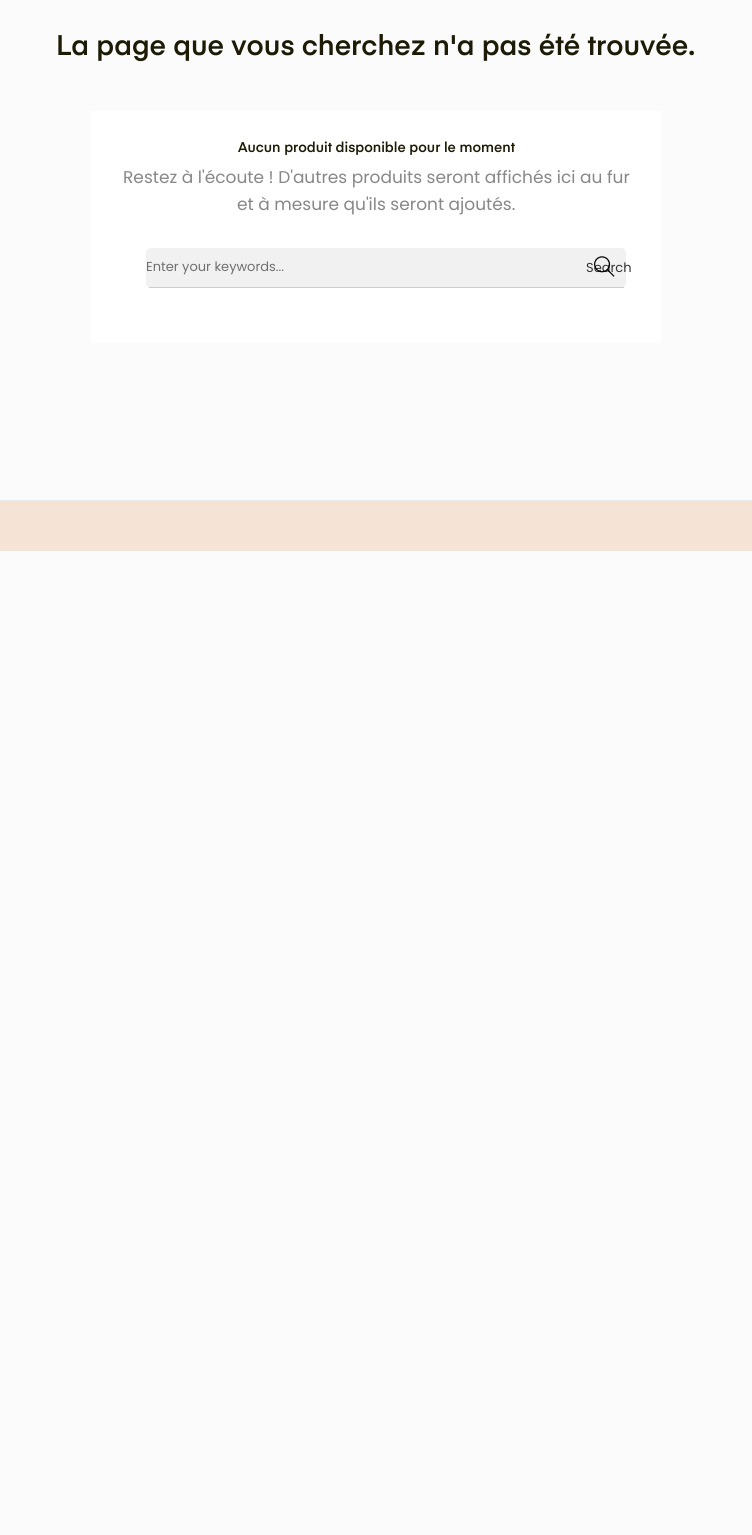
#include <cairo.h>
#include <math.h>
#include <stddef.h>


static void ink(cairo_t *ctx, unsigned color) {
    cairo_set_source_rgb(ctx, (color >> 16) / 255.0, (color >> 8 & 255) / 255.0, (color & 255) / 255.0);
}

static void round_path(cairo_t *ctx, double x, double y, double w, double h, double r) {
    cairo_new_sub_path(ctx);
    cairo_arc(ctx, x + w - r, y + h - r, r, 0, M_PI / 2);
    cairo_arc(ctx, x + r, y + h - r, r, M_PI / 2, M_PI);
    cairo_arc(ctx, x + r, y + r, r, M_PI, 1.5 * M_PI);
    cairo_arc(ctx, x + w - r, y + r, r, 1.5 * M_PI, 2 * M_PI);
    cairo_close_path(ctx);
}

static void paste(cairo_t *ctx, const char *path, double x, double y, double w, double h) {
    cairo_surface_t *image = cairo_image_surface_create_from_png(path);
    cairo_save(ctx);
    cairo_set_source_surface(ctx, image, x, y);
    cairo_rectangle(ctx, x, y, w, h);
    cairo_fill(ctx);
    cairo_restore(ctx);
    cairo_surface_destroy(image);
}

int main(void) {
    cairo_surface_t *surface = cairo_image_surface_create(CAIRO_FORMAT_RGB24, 752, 1535);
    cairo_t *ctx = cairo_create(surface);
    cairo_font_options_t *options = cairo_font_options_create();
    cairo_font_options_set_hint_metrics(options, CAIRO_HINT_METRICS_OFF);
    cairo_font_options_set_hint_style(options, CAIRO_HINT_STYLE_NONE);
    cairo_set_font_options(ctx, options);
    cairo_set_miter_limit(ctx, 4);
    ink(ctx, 0xFBFBFB);
    cairo_paint(ctx);
    cairo_select_font_face(ctx, "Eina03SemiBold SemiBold", CAIRO_FONT_SLANT_NORMAL, CAIRO_FONT_WEIGHT_NORMAL);
    cairo_set_font_size(ctx, 28);
    ink(ctx, 0x1D1A05);
    cairo_move_to(ctx, 56, 55);
    cairo_show_text(ctx, "La page que vous cherchez n'a pas été trouvée.");
    ink(ctx, 0xFFFFFF);
    cairo_rectangle(ctx, 91, 111, 570, 232);
    cairo_fill(ctx);
    cairo_set_font_size(ctx, 14);
    ink(ctx, 0x1D1A05);
    cairo_move_to(ctx, 238, 152);
    cairo_show_text(ctx, "Aucun produit disponible pour le moment");
    cairo_select_font_face(ctx, "Poppins", CAIRO_FONT_SLANT_NORMAL, CAIRO_FONT_WEIGHT_NORMAL);
    cairo_set_font_size(ctx, 17);
    ink(ctx, 0x878787);
    cairo_move_to(ctx, 123, 183);
    cairo_show_text(ctx, "Restez à l'écoute ! D'autres produits seront affichés ici au fur");
    cairo_move_to(ctx, 237, 210);
    cairo_show_text(ctx, "et à mesure qu'ils seront ajoutés.");
    ink(ctx, 0xF1F1F1);
    round_path(ctx, 146, 248, 480, 40, 5);
    cairo_fill(ctx);
    ink(ctx, 0xCCCCCC);
    cairo_rectangle(ctx, 149, 287, 475, 1);
    cairo_fill(ctx);
    cairo_set_font_size(ctx, 13);
    ink(ctx, 0x6F6F6F);
    cairo_move_to(ctx, 146, 271);
    cairo_show_text(ctx, "Enter your keywords...");
    ink(ctx, 0x333333);
    cairo_move_to(ctx, 586, 272);
    cairo_show_text(ctx, "Search");
    paste(ctx, "media/1.png", 594, 256, 21, 21);
    ink(ctx, 0xF5E4D6);
    cairo_rectangle(ctx, 0, 501, 752, 50);
    cairo_fill(ctx);
    ink(ctx, 0xEAEAEA);
    cairo_rectangle(ctx, 0, 500, 752, 1);
    cairo_fill(ctx);
    cairo_surface_write_to_png(surface, "image.png");
    cairo_font_options_destroy(options);
    cairo_destroy(ctx);
    cairo_surface_destroy(surface);
    return 0;
}
